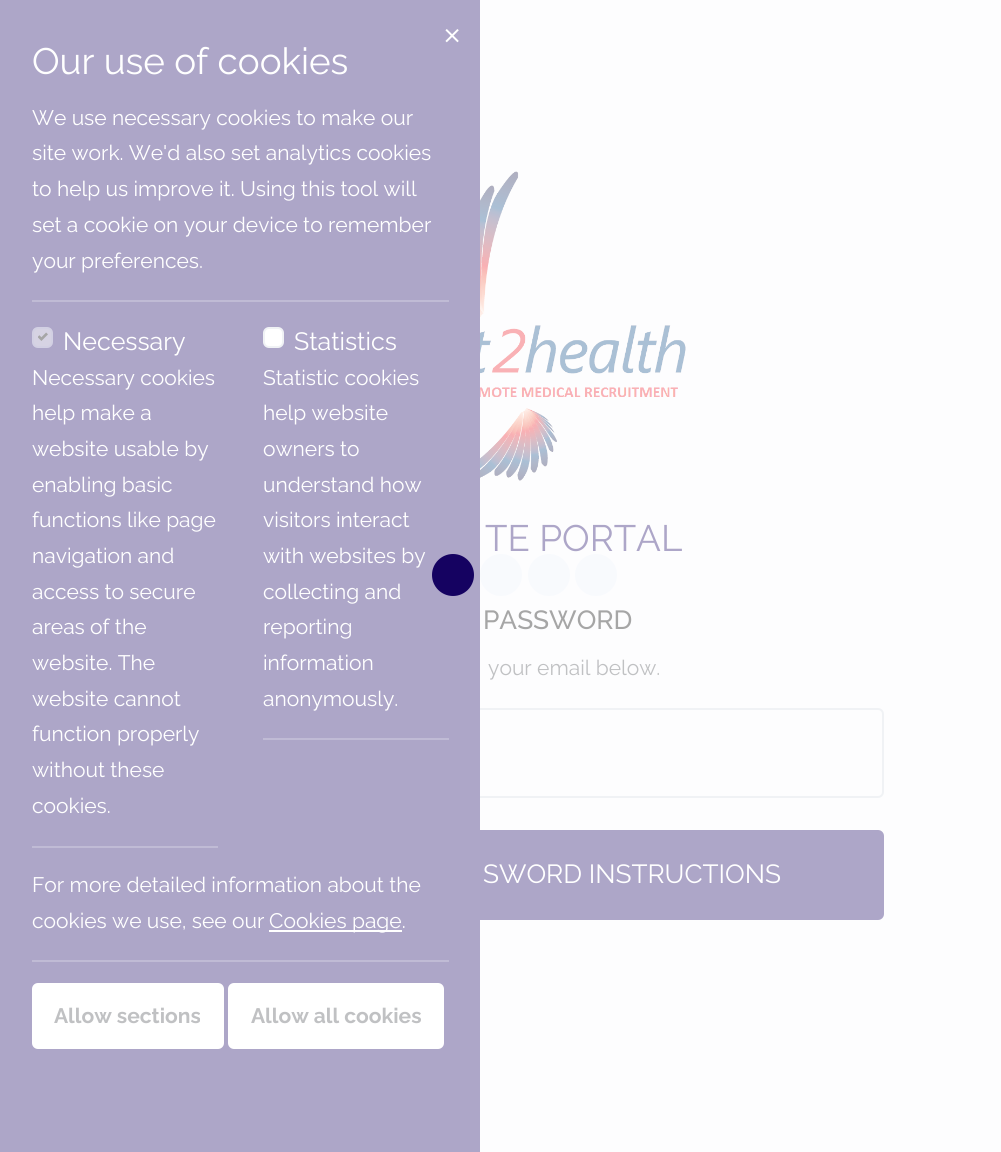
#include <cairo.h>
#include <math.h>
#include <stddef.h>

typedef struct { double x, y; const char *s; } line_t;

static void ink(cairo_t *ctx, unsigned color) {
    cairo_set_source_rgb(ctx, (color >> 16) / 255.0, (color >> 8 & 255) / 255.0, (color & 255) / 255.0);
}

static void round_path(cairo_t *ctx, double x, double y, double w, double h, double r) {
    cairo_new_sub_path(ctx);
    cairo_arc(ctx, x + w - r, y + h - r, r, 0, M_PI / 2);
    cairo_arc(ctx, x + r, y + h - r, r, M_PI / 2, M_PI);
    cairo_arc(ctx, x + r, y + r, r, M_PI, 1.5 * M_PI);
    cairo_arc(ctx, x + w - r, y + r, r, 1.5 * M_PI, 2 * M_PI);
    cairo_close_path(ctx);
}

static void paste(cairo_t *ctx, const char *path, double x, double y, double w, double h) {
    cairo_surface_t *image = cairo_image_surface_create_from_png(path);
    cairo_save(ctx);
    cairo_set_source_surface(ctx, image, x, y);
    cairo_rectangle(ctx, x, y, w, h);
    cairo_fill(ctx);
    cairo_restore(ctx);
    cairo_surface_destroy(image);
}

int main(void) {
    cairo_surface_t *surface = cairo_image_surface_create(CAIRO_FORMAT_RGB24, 1001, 1152);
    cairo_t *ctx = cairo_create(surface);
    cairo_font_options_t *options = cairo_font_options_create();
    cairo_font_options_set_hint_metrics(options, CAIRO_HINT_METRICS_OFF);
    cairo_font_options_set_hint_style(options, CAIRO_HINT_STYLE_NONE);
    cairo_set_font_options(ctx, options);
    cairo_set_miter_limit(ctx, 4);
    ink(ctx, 0xFDFDFE);
    cairo_paint(ctx);
    round_path(ctx, 120, 709, 763, 88, 5);
    ink(ctx, 0xF0F2F5);
    cairo_stroke(ctx);
    ink(ctx, 0xADA6C8);
    round_path(ctx, 120, 831, 763, 88, 5);
    cairo_fill_preserve(ctx);
    cairo_stroke(ctx);
    cairo_rectangle(ctx, 0, 0, 480, 1152);
    cairo_fill(ctx);
    paste(ctx, "media/1.png", 445, 29, 14, 14);
    cairo_select_font_face(ctx, "Raleway", CAIRO_FONT_SLANT_NORMAL, CAIRO_FONT_WEIGHT_NORMAL);
    cairo_set_font_size(ctx, 36.75);
    ink(ctx, 0xFFFFFF);
    cairo_move_to(ctx, 32, 74);
    cairo_show_text(ctx, "Our use of cookies");
    cairo_set_font_size(ctx, 21);
    {
        static const line_t items[] = {
            {32, 125, "We use necessary cookies to make our"},
            {32, 160, "site work. We'd also set analytics cookies"},
            {32, 196, "to help us improve it. Using this tool will"},
            {32, 232, "set a cookie on your device to remember"},
            {32, 268, "your preferences."},
        };
        for (size_t i = 0; i < sizeof items / sizeof *items; i++) {
            cairo_move_to(ctx, items[i].x, items[i].y);
            cairo_show_text(ctx, items[i].s);
        }
    }
    ink(ctx, 0xC0BBD5);
    cairo_rectangle(ctx, 32, 300, 417, 2);
    cairo_fill(ctx);
    ink(ctx, 0xD6D3E3);
    round_path(ctx, 32, 327, 21, 21, 6);
    cairo_fill(ctx);
    round_path(ctx, 33, 328, 19, 19, 5);
    cairo_set_source_rgba(ctx, 0.675, 0.737, 0.886, 0.1);
    cairo_stroke(ctx);
    paste(ctx, "media/2.png", 38, 332, 10, 9);
    cairo_set_font_size(ctx, 25);
    ink(ctx, 0xFFFFFF);
    cairo_move_to(ctx, 63, 350);
    cairo_show_text(ctx, "Necessary");
    cairo_set_font_size(ctx, 21);
    {
        static const line_t items[] = {
            {32, 385, "Necessary cookies"},
            {32, 420, "help make a"},
            {32, 456, "website usable by"},
            {32, 492, "enabling basic"},
            {32, 527, "functions like page"},
            {32, 563, "navigation and"},
            {32, 599, "access to secure"},
            {32, 634, "areas of the"},
            {32, 670, "website. The"},
            {32, 706, "website cannot"},
            {32, 741, "function properly"},
            {32, 777, "without these"},
            {32, 813, "cookies."},
        };
        for (size_t i = 0; i < sizeof items / sizeof *items; i++) {
            cairo_move_to(ctx, items[i].x, items[i].y);
            cairo_show_text(ctx, items[i].s);
        }
    }
    ink(ctx, 0xC0BBD5);
    cairo_rectangle(ctx, 32, 846, 186, 2);
    cairo_fill(ctx);
    ink(ctx, 0xFFFFFF);
    round_path(ctx, 264, 328, 19, 19, 5);
    cairo_fill_preserve(ctx);
    ink(ctx, 0xF0F2F5);
    cairo_stroke(ctx);
    cairo_set_font_size(ctx, 25);
    ink(ctx, 0xFFFFFF);
    cairo_move_to(ctx, 294, 350);
    cairo_show_text(ctx, "Statistics");
    cairo_set_font_size(ctx, 21);
    {
        static const line_t items[] = {
            {263, 385, "Statistic cookies"},
            {263, 420, "help website"},
            {263, 456, "owners to"},
            {263, 492, "understand how"},
            {263, 527, "visitors interact"},
            {263, 563, "with websites by"},
            {263, 599, "collecting and"},
            {263, 634, "reporting"},
            {263, 670, "information"},
            {263, 706, "anonymously."},
        };
        for (size_t i = 0; i < sizeof items / sizeof *items; i++) {
            cairo_move_to(ctx, items[i].x, items[i].y);
            cairo_show_text(ctx, items[i].s);
        }
    }
    ink(ctx, 0xC0BBD5);
    cairo_rectangle(ctx, 263, 738, 186, 2);
    cairo_fill(ctx);
    ink(ctx, 0xFFFFFF);
    cairo_move_to(ctx, 32, 892);
    cairo_show_text(ctx, "For more detailed information about the");
    cairo_move_to(ctx, 32, 928);
    cairo_show_text(ctx, "cookies we use, see our");
    cairo_rectangle(ctx, 269, 930, 133, 2);
    cairo_fill(ctx);
    cairo_move_to(ctx, 269, 928);
    cairo_show_text(ctx, "Cookies page.");
    ink(ctx, 0xC0BBD5);
    cairo_rectangle(ctx, 32, 960, 417, 2);
    cairo_fill(ctx);
    ink(ctx, 0xFFFFFF);
    round_path(ctx, 32, 983, 192, 66, 6);
    cairo_fill(ctx);
    cairo_select_font_face(ctx, "Raleway", CAIRO_FONT_SLANT_NORMAL, CAIRO_FONT_WEIGHT_BOLD);
    ink(ctx, 0xC0C1C3);
    cairo_move_to(ctx, 54, 1023);
    cairo_show_text(ctx, "Allow sections");
    ink(ctx, 0xFFFFFF);
    round_path(ctx, 228, 983, 216, 66, 6);
    cairo_fill(ctx);
    ink(ctx, 0xC0C1C3);
    cairo_move_to(ctx, 251, 1023);
    cairo_show_text(ctx, "Allow all cookies");
    paste(ctx, "media/3.png", 480, 171, 206, 310);
    cairo_select_font_face(ctx, "Raleway", CAIRO_FONT_SLANT_NORMAL, CAIRO_FONT_WEIGHT_NORMAL);
    cairo_set_font_size(ctx, 36.75);
    ink(ctx, 0xADA6C8);
    cairo_move_to(ctx, 485, 551);
    cairo_show_text(ctx, "TE PORTAL");
    cairo_select_font_face(ctx, "Raleway Medium", CAIRO_FONT_SLANT_NORMAL, CAIRO_FONT_WEIGHT_NORMAL);
    cairo_set_font_size(ctx, 26.25);
    ink(ctx, 0xA6A6A6);
    cairo_move_to(ctx, 483, 629);
    cairo_show_text(ctx, "PASSWORD");
    cairo_select_font_face(ctx, "Raleway", CAIRO_FONT_SLANT_NORMAL, CAIRO_FONT_WEIGHT_NORMAL);
    cairo_set_font_size(ctx, 21);
    ink(ctx, 0xC0C1C3);
    cairo_move_to(ctx, 488, 675);
    cairo_show_text(ctx, "your email below.");
    cairo_set_font_size(ctx, 26.25);
    ink(ctx, 0xFFFFFF);
    cairo_move_to(ctx, 483, 883);
    cairo_show_text(ctx, "SWORD INSTRUCTIONS");
    ink(ctx, 0x150261);
    cairo_new_path(ctx);
    cairo_arc(ctx, 453, 575, 21, 0, 2 * M_PI);
    cairo_fill(ctx);
    ink(ctx, 0xF8FAFD);
    cairo_arc(ctx, 501, 575, 21, 0, 2 * M_PI);
    cairo_fill(ctx);
    cairo_arc(ctx, 549, 575, 21, 0, 2 * M_PI);
    cairo_fill(ctx);
    cairo_arc(ctx, 596, 575, 21, 0, 2 * M_PI);
    cairo_fill(ctx);
    cairo_surface_write_to_png(surface, "image.png");
    cairo_font_options_destroy(options);
    cairo_destroy(ctx);
    cairo_surface_destroy(surface);
    return 0;
}
